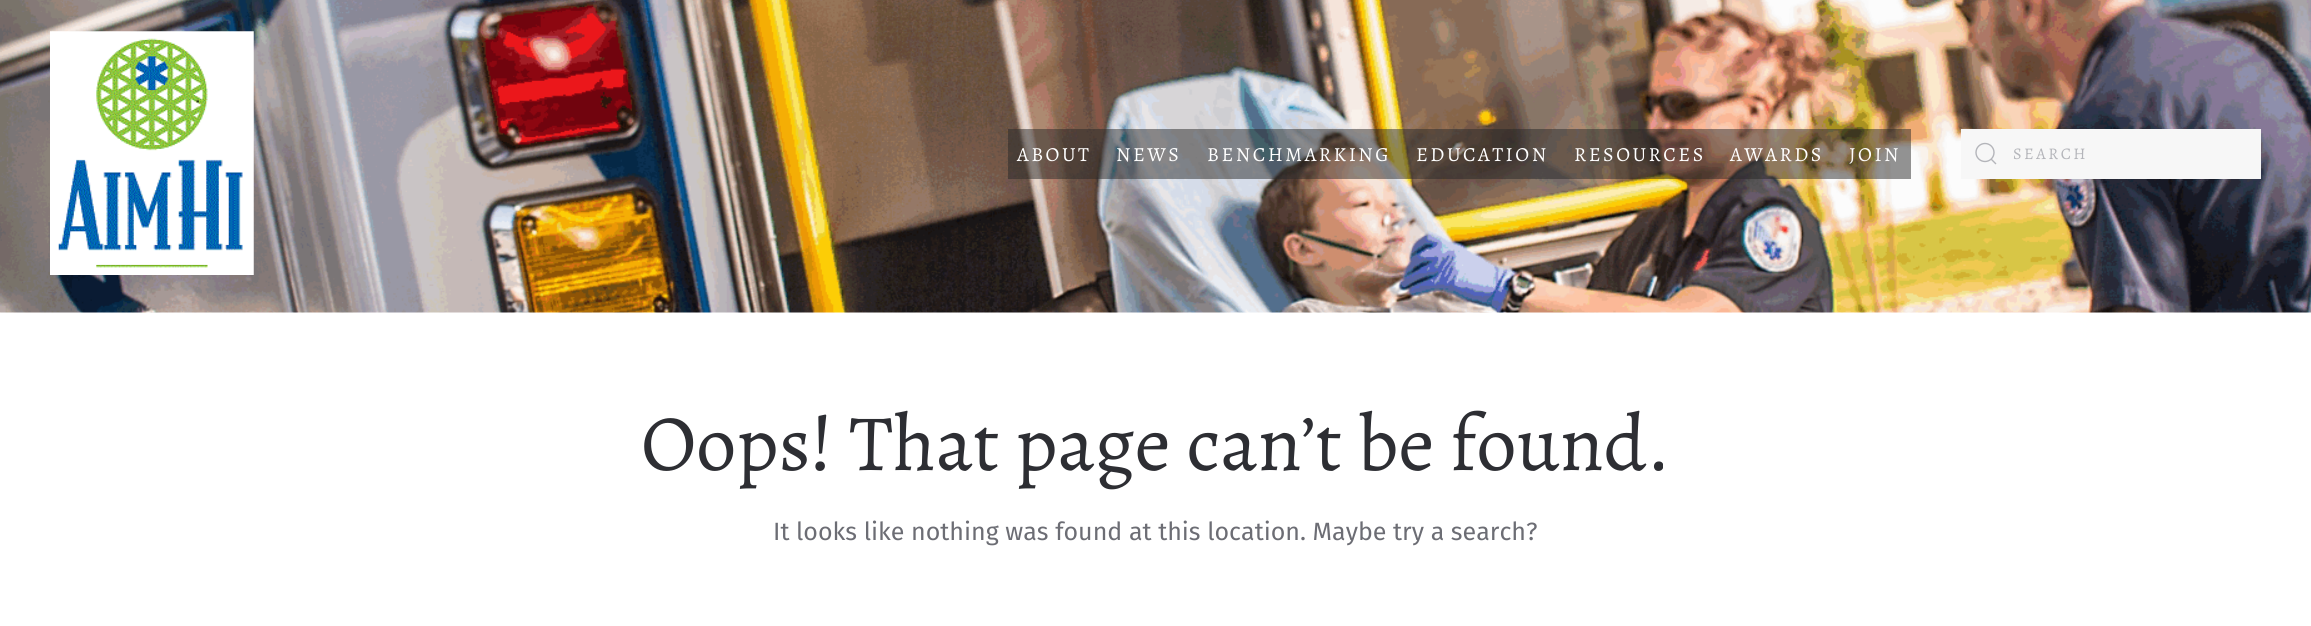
#include <cairo.h>
#include <math.h>
#include <stddef.h>

typedef struct { double x, y; const char *s; } line_t;

static void ink(cairo_t *ctx, unsigned color) {
    cairo_set_source_rgb(ctx, (color >> 16) / 255.0, (color >> 8 & 255) / 255.0, (color & 255) / 255.0);
}

static void write_spaced(cairo_t *ctx, double x, double y, const char *s, double letter, double word) {
    cairo_move_to(ctx, x, y);
    while (*s) {
        char ch[5] = {0};
        int n = 0;
        do ch[n++] = *s++; while ((*s & 0xC0) == 0x80);
        cairo_show_text(ctx, ch);
        cairo_rel_move_to(ctx, letter + word * (*ch == ' '), 0);
    }
}

static void paste(cairo_t *ctx, const char *path, double x, double y, double w, double h) {
    cairo_surface_t *image = cairo_image_surface_create_from_png(path);
    cairo_save(ctx);
    cairo_set_source_surface(ctx, image, x, y);
    cairo_rectangle(ctx, x, y, w, h);
    cairo_fill(ctx);
    cairo_restore(ctx);
    cairo_surface_destroy(image);
}

int main(void) {
    cairo_surface_t *surface = cairo_image_surface_create(CAIRO_FORMAT_RGB24, 2311, 626);
    cairo_t *ctx = cairo_create(surface);
    cairo_font_options_t *options = cairo_font_options_create();
    cairo_font_options_set_hint_metrics(options, CAIRO_HINT_METRICS_OFF);
    cairo_font_options_set_hint_style(options, CAIRO_HINT_STYLE_NONE);
    cairo_set_font_options(ctx, options);
    cairo_set_miter_limit(ctx, 4);
    ink(ctx, 0xFFFFFF);
    cairo_paint(ctx);
    paste(ctx, "media/1.png", 0, 0, 2311, 313);
    paste(ctx, "media/2.png", 50, 31, 204, 244);
    cairo_set_source_rgba(ctx, 0.157, 0.157, 0.157, 0.5);
    cairo_rectangle(ctx, 1008, 129, 903, 50);
    cairo_fill(ctx);
    cairo_select_font_face(ctx, "Alegreya", CAIRO_FONT_SLANT_NORMAL, CAIRO_FONT_WEIGHT_NORMAL);
    cairo_set_font_size(ctx, 20);
    ink(ctx, 0xFFFFFF);
    {
        static const line_t items[] = {
            {1017, 161, "ABOUT"},
            {1116, 161, "NEWS"},
            {1207, 161, "BENCHMARKING"},
            {1416, 161, "EDUCATION"},
            {1574, 161, "RESOURCES"},
            {1730, 161, "AWARDS"},
            {1849, 161, "JOIN"},
        };
        for (size_t i = 0; i < sizeof items / sizeof *items; i++) {
            write_spaced(ctx, items[i].x, items[i].y, items[i].s, 2.5, 0);
        }
    }
    ink(ctx, 0xF7F7F7);
    cairo_rectangle(ctx, 1961, 129, 300, 50);
    cairo_fill(ctx);
    cairo_arc(ctx, 1985, 152.5, 9, 0, 2 * M_PI);
    ink(ctx, 0xB4B5BA);
    cairo_set_line_width(ctx, 1.4);
    cairo_stroke(ctx);
    cairo_new_path(ctx);
    cairo_move_to(ctx, 1991, 159);
    cairo_line_to(ctx, 1996, 164);
    cairo_close_path(ctx);
    cairo_stroke(ctx);
    cairo_set_font_size(ctx, 16.25);
    write_spaced(ctx, 2013, 159, "SEARCH", 2.5, 0);
    cairo_set_font_size(ctx, 80);
    ink(ctx, 0x2D2E33);
    cairo_move_to(ctx, 641, 470);
    cairo_show_text(ctx, "Oops! That page can’t be found.");
    cairo_select_font_face(ctx, "Fira Sans", CAIRO_FONT_SLANT_NORMAL, CAIRO_FONT_WEIGHT_NORMAL);
    cairo_set_font_size(ctx, 25);
    ink(ctx, 0x6C6D74);
    cairo_move_to(ctx, 773, 540);
    cairo_show_text(ctx, "It looks like nothing was found at this location. Maybe try a search?");
    cairo_surface_write_to_png(surface, "image.png");
    cairo_font_options_destroy(options);
    cairo_destroy(ctx);
    cairo_surface_destroy(surface);
    return 0;
}
